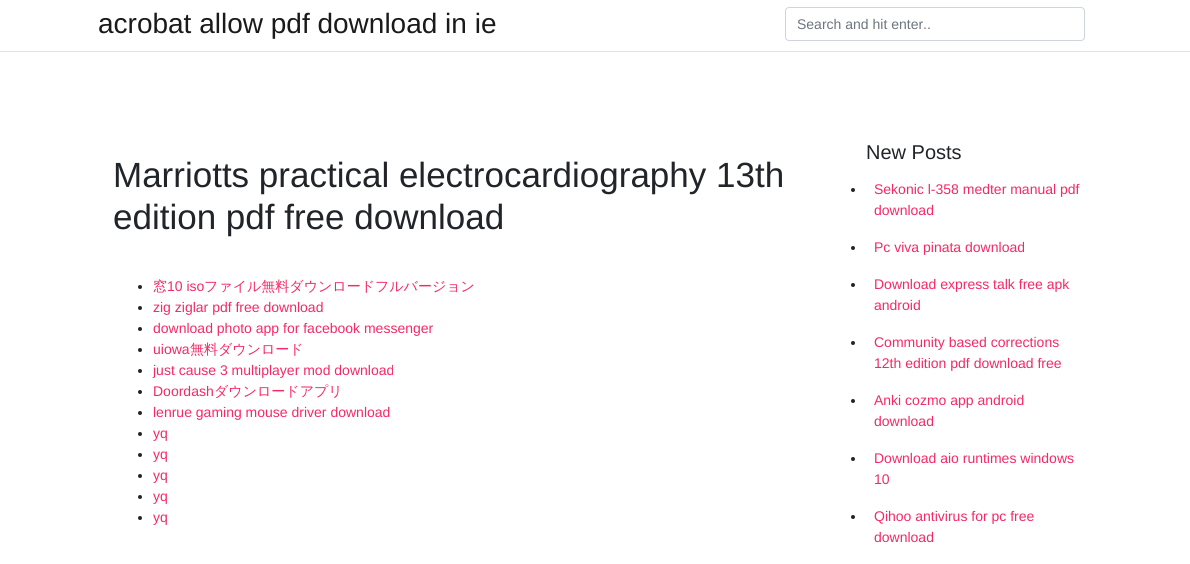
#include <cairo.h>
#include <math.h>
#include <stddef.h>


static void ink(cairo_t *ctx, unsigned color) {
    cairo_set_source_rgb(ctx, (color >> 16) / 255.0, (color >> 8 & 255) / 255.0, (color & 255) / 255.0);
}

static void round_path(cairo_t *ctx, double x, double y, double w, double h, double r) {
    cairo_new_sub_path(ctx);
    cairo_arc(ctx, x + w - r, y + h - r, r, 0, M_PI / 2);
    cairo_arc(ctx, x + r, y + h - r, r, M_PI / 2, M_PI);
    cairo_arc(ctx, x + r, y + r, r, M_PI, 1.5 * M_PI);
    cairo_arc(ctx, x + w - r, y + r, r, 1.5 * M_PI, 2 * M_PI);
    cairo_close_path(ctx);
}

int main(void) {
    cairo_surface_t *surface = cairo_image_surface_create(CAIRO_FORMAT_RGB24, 1190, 564);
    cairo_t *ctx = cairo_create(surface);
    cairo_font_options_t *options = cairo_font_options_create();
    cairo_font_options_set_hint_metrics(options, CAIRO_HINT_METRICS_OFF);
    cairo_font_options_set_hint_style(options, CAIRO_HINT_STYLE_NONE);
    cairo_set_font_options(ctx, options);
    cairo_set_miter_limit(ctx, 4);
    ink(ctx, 0xFFFFFF);
    cairo_paint(ctx);
    ink(ctx, 0xE1E2E3);
    cairo_rectangle(ctx, 0, 51, 1190, 1);
    cairo_fill(ctx);
    cairo_select_font_face(ctx, "Liberation Sans", CAIRO_FONT_SLANT_NORMAL, CAIRO_FONT_WEIGHT_NORMAL);
    cairo_set_font_size(ctx, 28);
    ink(ctx, 0x1A1A1A);
    cairo_move_to(ctx, 98, 33);
    cairo_show_text(ctx, "acrobat allow pdf download in ie");
    round_path(ctx, 785.5, 7.5, 299, 33, 3.5);
    ink(ctx, 0xCED4DA);
    cairo_set_line_width(ctx, 1);
    cairo_stroke(ctx);
    cairo_set_font_size(ctx, 14);
    ink(ctx, 0x6C757D);
    cairo_move_to(ctx, 797, 29);
    cairo_show_text(ctx, "Search and hit enter..");
    cairo_set_font_size(ctx, 35);
    ink(ctx, 0x212529);
    cairo_move_to(ctx, 113, 187);
    cairo_show_text(ctx, "Marriotts practical electrocardiography 13th");
    cairo_move_to(ctx, 113, 229);
    cairo_show_text(ctx, "edition pdf free download");
    cairo_new_path(ctx);
    cairo_arc(ctx, 140, 287, 2, 0, 2 * M_PI);
    cairo_fill(ctx);
    cairo_select_font_face(ctx, "WenQuanYi Zen Hei Medium", CAIRO_FONT_SLANT_NORMAL, CAIRO_FONT_WEIGHT_NORMAL);
    cairo_set_font_size(ctx, 14);
    ink(ctx, 0xF42966);
    cairo_move_to(ctx, 153, 291);
    cairo_show_text(ctx, "窓");
    cairo_select_font_face(ctx, "Liberation Sans", CAIRO_FONT_SLANT_NORMAL, CAIRO_FONT_WEIGHT_NORMAL);
    cairo_move_to(ctx, 167, 291);
    cairo_show_text(ctx, "10 iso");
    cairo_select_font_face(ctx, "WenQuanYi Zen Hei Medium", CAIRO_FONT_SLANT_NORMAL, CAIRO_FONT_WEIGHT_NORMAL);
    cairo_move_to(ctx, 204, 291);
    cairo_show_text(ctx, "ファイル無料ダウンロードフルバージョン");
    ink(ctx, 0x212529);
    cairo_new_path(ctx);
    cairo_arc(ctx, 140, 308, 2, 0, 2 * M_PI);
    cairo_fill(ctx);
    cairo_select_font_face(ctx, "Liberation Sans", CAIRO_FONT_SLANT_NORMAL, CAIRO_FONT_WEIGHT_NORMAL);
    ink(ctx, 0xF42966);
    cairo_move_to(ctx, 153, 312);
    cairo_show_text(ctx, "zig ziglar pdf free download");
    ink(ctx, 0x212529);
    cairo_new_path(ctx);
    cairo_arc(ctx, 140, 329, 2, 0, 2 * M_PI);
    cairo_fill(ctx);
    ink(ctx, 0xF42966);
    cairo_move_to(ctx, 153, 333);
    cairo_show_text(ctx, "download photo app for facebook messenger");
    ink(ctx, 0x212529);
    cairo_new_path(ctx);
    cairo_arc(ctx, 140, 350, 2, 0, 2 * M_PI);
    cairo_fill(ctx);
    ink(ctx, 0xF42966);
    cairo_move_to(ctx, 153, 354);
    cairo_show_text(ctx, "uiowa");
    cairo_select_font_face(ctx, "WenQuanYi Zen Hei Medium", CAIRO_FONT_SLANT_NORMAL, CAIRO_FONT_WEIGHT_NORMAL);
    cairo_move_to(ctx, 190, 354);
    cairo_show_text(ctx, "無料ダウンロード");
    ink(ctx, 0x212529);
    cairo_new_path(ctx);
    cairo_arc(ctx, 140, 371, 2, 0, 2 * M_PI);
    cairo_fill(ctx);
    cairo_select_font_face(ctx, "Liberation Sans", CAIRO_FONT_SLANT_NORMAL, CAIRO_FONT_WEIGHT_NORMAL);
    ink(ctx, 0xF42966);
    cairo_move_to(ctx, 153, 375);
    cairo_show_text(ctx, "just cause 3 multiplayer mod download");
    ink(ctx, 0x212529);
    cairo_new_path(ctx);
    cairo_arc(ctx, 140, 392, 2, 0, 2 * M_PI);
    cairo_fill(ctx);
    ink(ctx, 0xF42966);
    cairo_move_to(ctx, 153, 396);
    cairo_show_text(ctx, "Doordash");
    cairo_select_font_face(ctx, "WenQuanYi Zen Hei Medium", CAIRO_FONT_SLANT_NORMAL, CAIRO_FONT_WEIGHT_NORMAL);
    cairo_move_to(ctx, 214, 396);
    cairo_show_text(ctx, "ダウンロードアプリ");
    ink(ctx, 0x212529);
    cairo_new_path(ctx);
    cairo_arc(ctx, 140, 413, 2, 0, 2 * M_PI);
    cairo_fill(ctx);
    cairo_select_font_face(ctx, "Liberation Sans", CAIRO_FONT_SLANT_NORMAL, CAIRO_FONT_WEIGHT_NORMAL);
    ink(ctx, 0xF42966);
    cairo_move_to(ctx, 153, 417);
    cairo_show_text(ctx, "lenrue gaming mouse driver download");
    ink(ctx, 0x212529);
    cairo_new_path(ctx);
    cairo_arc(ctx, 140, 434, 2, 0, 2 * M_PI);
    cairo_fill(ctx);
    ink(ctx, 0xF42966);
    cairo_move_to(ctx, 153, 438);
    cairo_show_text(ctx, "yq");
    ink(ctx, 0x212529);
    cairo_new_path(ctx);
    cairo_arc(ctx, 140, 455, 2, 0, 2 * M_PI);
    cairo_fill(ctx);
    ink(ctx, 0xF42966);
    cairo_move_to(ctx, 153, 459);
    cairo_show_text(ctx, "yq");
    ink(ctx, 0x212529);
    cairo_new_path(ctx);
    cairo_arc(ctx, 140, 476, 2, 0, 2 * M_PI);
    cairo_fill(ctx);
    ink(ctx, 0xF42966);
    cairo_move_to(ctx, 153, 480);
    cairo_show_text(ctx, "yq");
    ink(ctx, 0x212529);
    cairo_new_path(ctx);
    cairo_arc(ctx, 140, 497, 2, 0, 2 * M_PI);
    cairo_fill(ctx);
    ink(ctx, 0xF42966);
    cairo_move_to(ctx, 153, 501);
    cairo_show_text(ctx, "yq");
    ink(ctx, 0x212529);
    cairo_new_path(ctx);
    cairo_arc(ctx, 140, 518, 2, 0, 2 * M_PI);
    cairo_fill(ctx);
    ink(ctx, 0xF42966);
    cairo_move_to(ctx, 153, 522);
    cairo_show_text(ctx, "yq");
    cairo_set_font_size(ctx, 20);
    ink(ctx, 0x212529);
    cairo_move_to(ctx, 866, 159);
    cairo_show_text(ctx, "New Posts");
    cairo_new_path(ctx);
    cairo_arc(ctx, 853, 190, 2, 0, 2 * M_PI);
    cairo_fill(ctx);
    cairo_set_font_size(ctx, 14);
    ink(ctx, 0xF42966);
    cairo_move_to(ctx, 874, 194);
    cairo_show_text(ctx, "Sekonic l-358 medter manual pdf");
    cairo_move_to(ctx, 874, 215);
    cairo_show_text(ctx, "download");
    ink(ctx, 0x212529);
    cairo_new_path(ctx);
    cairo_arc(ctx, 853, 248, 2, 0, 2 * M_PI);
    cairo_fill(ctx);
    ink(ctx, 0xF42966);
    cairo_move_to(ctx, 874, 252);
    cairo_show_text(ctx, "Pc viva pinata download");
    ink(ctx, 0x212529);
    cairo_new_path(ctx);
    cairo_arc(ctx, 853, 285, 2, 0, 2 * M_PI);
    cairo_fill(ctx);
    ink(ctx, 0xF42966);
    cairo_move_to(ctx, 874, 289);
    cairo_show_text(ctx, "Download express talk free apk");
    cairo_move_to(ctx, 874, 310);
    cairo_show_text(ctx, "android");
    ink(ctx, 0x212529);
    cairo_new_path(ctx);
    cairo_arc(ctx, 853, 343, 2, 0, 2 * M_PI);
    cairo_fill(ctx);
    ink(ctx, 0xF42966);
    cairo_move_to(ctx, 874, 347);
    cairo_show_text(ctx, "Community based corrections");
    cairo_move_to(ctx, 874, 368);
    cairo_show_text(ctx, "12th edition pdf download free");
    ink(ctx, 0x212529);
    cairo_new_path(ctx);
    cairo_arc(ctx, 853, 401, 2, 0, 2 * M_PI);
    cairo_fill(ctx);
    ink(ctx, 0xF42966);
    cairo_move_to(ctx, 874, 405);
    cairo_show_text(ctx, "Anki cozmo app android");
    cairo_move_to(ctx, 874, 426);
    cairo_show_text(ctx, "download");
    ink(ctx, 0x212529);
    cairo_new_path(ctx);
    cairo_arc(ctx, 853, 459, 2, 0, 2 * M_PI);
    cairo_fill(ctx);
    ink(ctx, 0xF42966);
    cairo_move_to(ctx, 874, 463);
    cairo_show_text(ctx, "Download aio runtimes windows");
    cairo_move_to(ctx, 874, 484);
    cairo_show_text(ctx, "10");
    ink(ctx, 0x212529);
    cairo_new_path(ctx);
    cairo_arc(ctx, 853, 517, 2, 0, 2 * M_PI);
    cairo_fill(ctx);
    ink(ctx, 0xF42966);
    cairo_move_to(ctx, 874, 521);
    cairo_show_text(ctx, "Qihoo antivirus for pc free");
    cairo_move_to(ctx, 874, 542);
    cairo_show_text(ctx, "download");
    cairo_surface_write_to_png(surface, "image.png");
    cairo_font_options_destroy(options);
    cairo_destroy(ctx);
    cairo_surface_destroy(surface);
    return 0;
}
